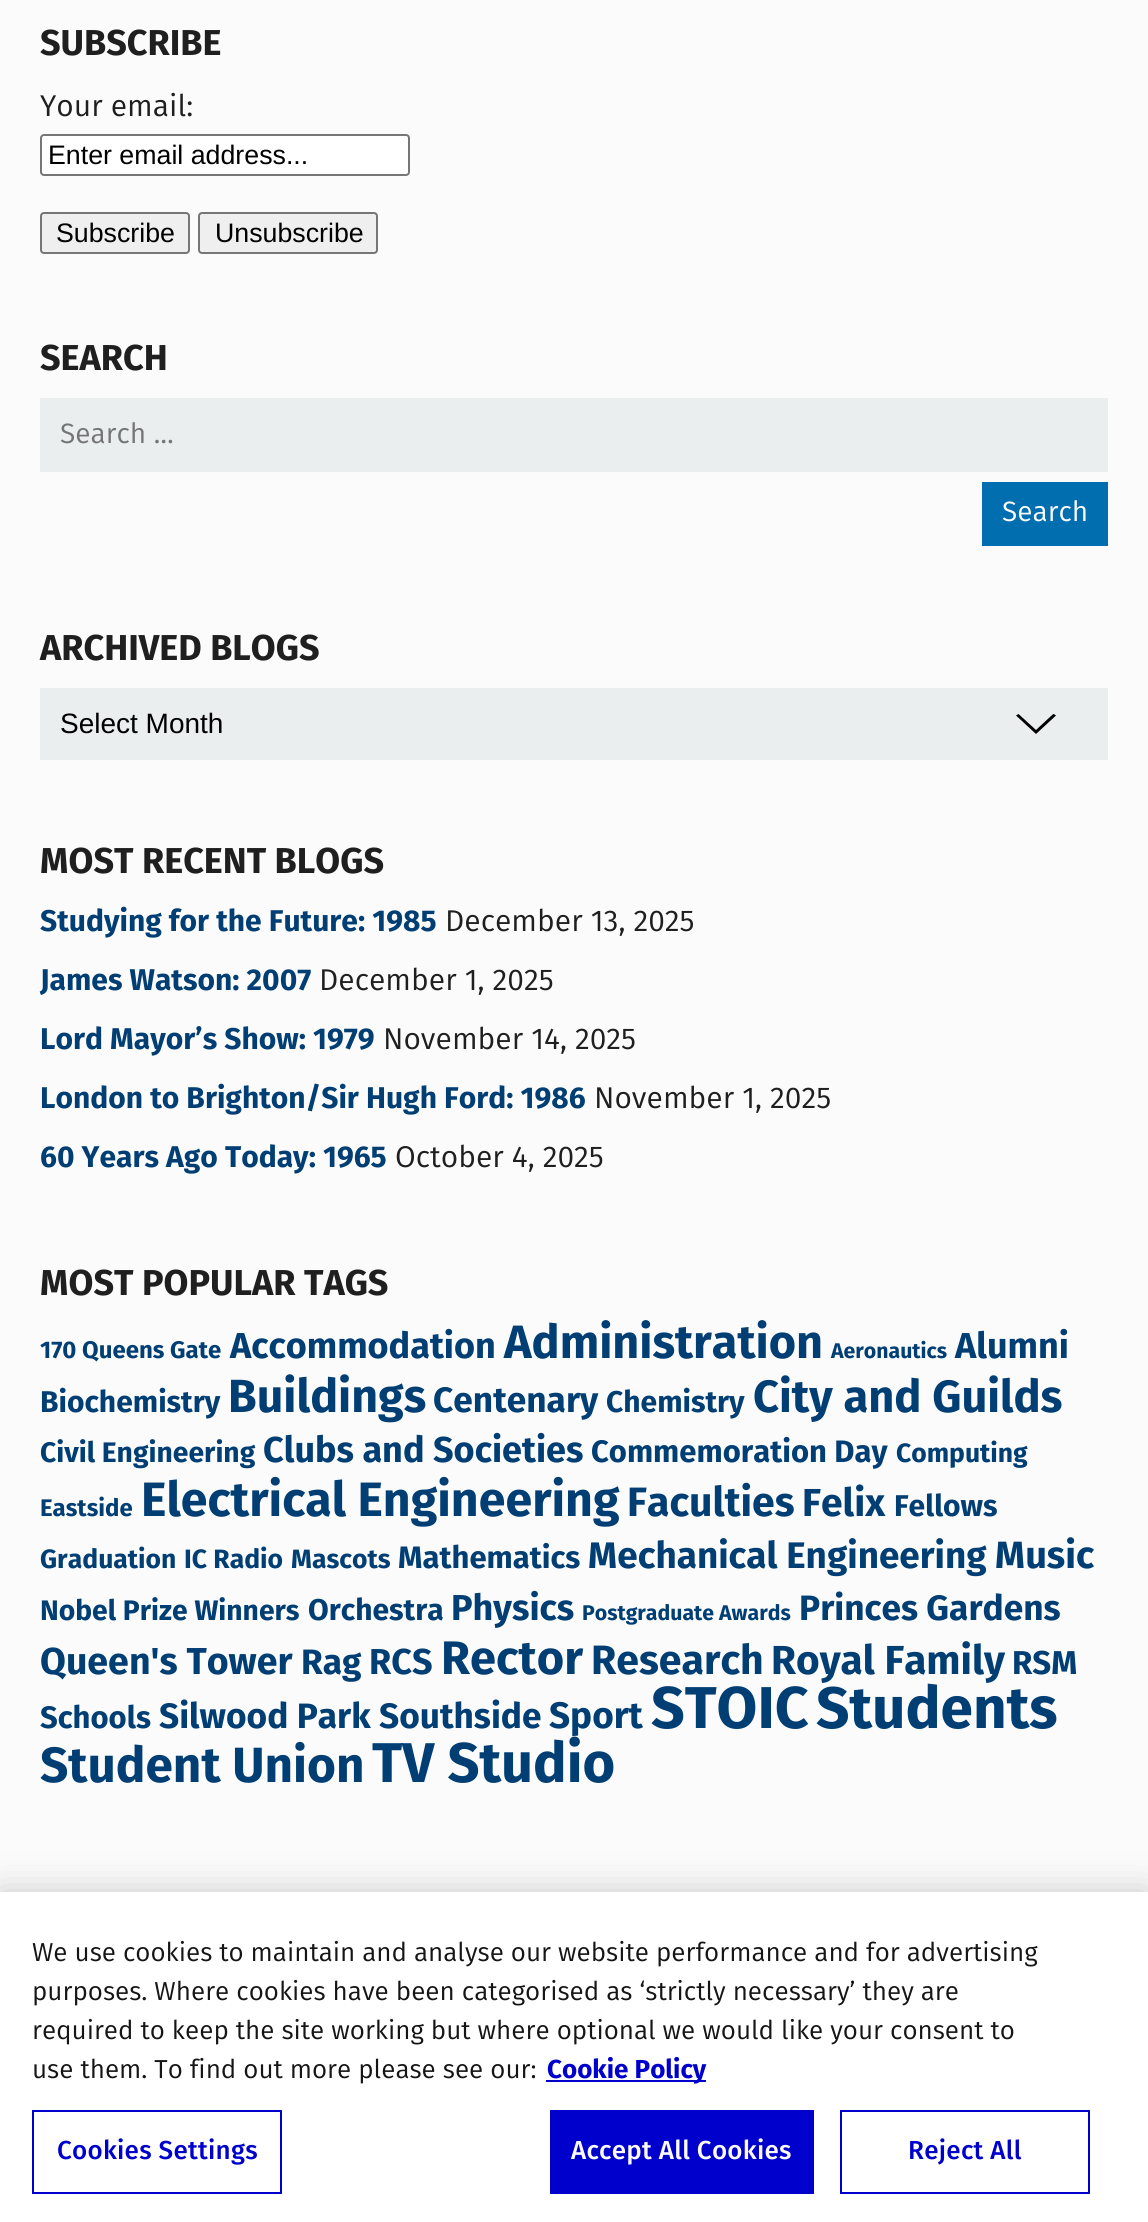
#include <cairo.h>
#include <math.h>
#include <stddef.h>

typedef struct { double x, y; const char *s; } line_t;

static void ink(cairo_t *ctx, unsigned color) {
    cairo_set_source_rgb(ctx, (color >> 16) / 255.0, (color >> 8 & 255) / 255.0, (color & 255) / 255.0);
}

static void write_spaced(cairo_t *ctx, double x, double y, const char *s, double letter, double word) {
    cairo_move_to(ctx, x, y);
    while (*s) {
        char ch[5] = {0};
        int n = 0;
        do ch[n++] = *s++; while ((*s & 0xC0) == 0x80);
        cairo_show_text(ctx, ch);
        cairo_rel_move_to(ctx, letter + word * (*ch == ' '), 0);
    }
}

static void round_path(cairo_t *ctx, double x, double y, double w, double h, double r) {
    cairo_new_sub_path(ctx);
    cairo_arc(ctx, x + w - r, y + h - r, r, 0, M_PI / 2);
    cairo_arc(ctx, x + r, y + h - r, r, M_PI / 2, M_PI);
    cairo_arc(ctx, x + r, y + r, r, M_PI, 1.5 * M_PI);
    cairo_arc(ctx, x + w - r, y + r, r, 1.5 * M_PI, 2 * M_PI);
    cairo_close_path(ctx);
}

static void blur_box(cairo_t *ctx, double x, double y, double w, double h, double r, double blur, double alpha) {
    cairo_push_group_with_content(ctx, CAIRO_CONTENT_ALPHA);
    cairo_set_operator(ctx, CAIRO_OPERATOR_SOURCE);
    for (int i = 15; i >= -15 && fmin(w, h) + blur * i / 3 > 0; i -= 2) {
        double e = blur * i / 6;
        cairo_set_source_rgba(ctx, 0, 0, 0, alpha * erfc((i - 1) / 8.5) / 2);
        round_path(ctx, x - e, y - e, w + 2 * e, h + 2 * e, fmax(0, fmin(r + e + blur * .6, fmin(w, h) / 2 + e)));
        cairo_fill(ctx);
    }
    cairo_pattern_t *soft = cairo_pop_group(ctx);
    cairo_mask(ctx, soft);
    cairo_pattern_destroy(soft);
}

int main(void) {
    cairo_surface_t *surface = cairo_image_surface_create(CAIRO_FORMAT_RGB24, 1148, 2222);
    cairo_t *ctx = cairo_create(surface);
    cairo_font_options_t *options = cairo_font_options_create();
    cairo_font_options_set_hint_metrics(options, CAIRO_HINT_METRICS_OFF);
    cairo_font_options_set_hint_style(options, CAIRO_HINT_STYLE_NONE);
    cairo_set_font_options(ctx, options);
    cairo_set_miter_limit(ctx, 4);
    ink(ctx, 0xFBFBFB);
    cairo_paint(ctx);
    cairo_select_font_face(ctx, "Fira Sans", CAIRO_FONT_SLANT_NORMAL, CAIRO_FONT_WEIGHT_BOLD);
    cairo_set_font_size(ctx, 36);
    ink(ctx, 0x1F1F1F);
    cairo_move_to(ctx, 40, 55);
    cairo_show_text(ctx, "SUBSCRIBE");
    cairo_select_font_face(ctx, "Fira Sans", CAIRO_FONT_SLANT_NORMAL, CAIRO_FONT_WEIGHT_NORMAL);
    cairo_set_font_size(ctx, 30);
    cairo_move_to(ctx, 40, 116);
    cairo_show_text(ctx, "Your email:");
    ink(ctx, 0xFFFFFF);
    round_path(ctx, 41, 135, 368, 40, 3);
    cairo_fill_preserve(ctx);
    ink(ctx, 0x767676);
    cairo_stroke(ctx);
    cairo_select_font_face(ctx, "Liberation Sans", CAIRO_FONT_SLANT_NORMAL, CAIRO_FONT_WEIGHT_NORMAL);
    cairo_set_font_size(ctx, 26.75);
    ink(ctx, 0x000000);
    cairo_move_to(ctx, 48, 164);
    cairo_show_text(ctx, "Enter email address...");
    ink(ctx, 0xEFEFEF);
    round_path(ctx, 41, 213, 148, 40, 3);
    cairo_fill_preserve(ctx);
    ink(ctx, 0x767676);
    cairo_stroke(ctx);
    ink(ctx, 0x000000);
    cairo_move_to(ctx, 56, 242);
    cairo_show_text(ctx, "Subscribe");
    ink(ctx, 0xEFEFEF);
    round_path(ctx, 199, 213, 178, 40, 3);
    cairo_fill_preserve(ctx);
    ink(ctx, 0x767676);
    cairo_stroke(ctx);
    ink(ctx, 0x000000);
    cairo_move_to(ctx, 215, 242);
    cairo_show_text(ctx, "Unsubscribe");
    cairo_select_font_face(ctx, "Fira Sans", CAIRO_FONT_SLANT_NORMAL, CAIRO_FONT_WEIGHT_BOLD);
    cairo_set_font_size(ctx, 36);
    ink(ctx, 0x1F1F1F);
    cairo_move_to(ctx, 40, 370);
    cairo_show_text(ctx, "SEARCH");
    ink(ctx, 0xEBEEEE);
    cairo_rectangle(ctx, 40, 398, 1068, 74);
    cairo_fill(ctx);
    cairo_select_font_face(ctx, "Fira Sans", CAIRO_FONT_SLANT_NORMAL, CAIRO_FONT_WEIGHT_NORMAL);
    cairo_set_font_size(ctx, 28);
    ink(ctx, 0x757575);
    cairo_move_to(ctx, 60, 443);
    cairo_show_text(ctx, "Search …");
    ink(ctx, 0x006EAF);
    cairo_rectangle(ctx, 982, 482, 126, 64);
    cairo_fill(ctx);
    ink(ctx, 0xFBFBFB);
    cairo_move_to(ctx, 1002, 521);
    cairo_show_text(ctx, "Search");
    cairo_select_font_face(ctx, "Fira Sans", CAIRO_FONT_SLANT_NORMAL, CAIRO_FONT_WEIGHT_BOLD);
    cairo_set_font_size(ctx, 36);
    ink(ctx, 0x1F1F1F);
    cairo_move_to(ctx, 40, 660);
    cairo_show_text(ctx, "ARCHIVED BLOGS");
    ink(ctx, 0xEBEEEE);
    cairo_rectangle(ctx, 40, 688, 1068, 72);
    cairo_fill(ctx);
    ink(ctx, 0x000000);
    cairo_new_path(ctx);
    cairo_move_to(ctx, 1016, 715.5);
    cairo_line_to(ctx, 1018.5, 714);
    cairo_line_to(ctx, 1036, 730);
    cairo_line_to(ctx, 1051, 716);
    cairo_curve_to(ctx, 1054, 713.5, 1053, 713.5, 1056, 715.5);
    cairo_line_to(ctx, 1036, 734);
    cairo_close_path(ctx);
    cairo_fill(ctx);
    cairo_select_font_face(ctx, "Liberation Sans", CAIRO_FONT_SLANT_NORMAL, CAIRO_FONT_WEIGHT_NORMAL);
    cairo_set_font_size(ctx, 28);
    cairo_move_to(ctx, 60, 733);
    cairo_show_text(ctx, "Select Month");
    cairo_select_font_face(ctx, "Fira Sans", CAIRO_FONT_SLANT_NORMAL, CAIRO_FONT_WEIGHT_BOLD);
    cairo_set_font_size(ctx, 36);
    ink(ctx, 0x1F1F1F);
    cairo_move_to(ctx, 40, 873);
    cairo_show_text(ctx, "MOST RECENT BLOGS");
    cairo_set_font_size(ctx, 30);
    ink(ctx, 0x003E74);
    cairo_move_to(ctx, 40, 931);
    cairo_show_text(ctx, "Studying for the Future: 1985");
    cairo_select_font_face(ctx, "Fira Sans", CAIRO_FONT_SLANT_NORMAL, CAIRO_FONT_WEIGHT_NORMAL);
    ink(ctx, 0x1F1F1F);
    cairo_move_to(ctx, 445, 931);
    cairo_show_text(ctx, "December 13, 2025");
    cairo_select_font_face(ctx, "Fira Sans", CAIRO_FONT_SLANT_NORMAL, CAIRO_FONT_WEIGHT_BOLD);
    ink(ctx, 0x003E74);
    cairo_move_to(ctx, 40, 990);
    cairo_show_text(ctx, "James Watson: 2007");
    cairo_select_font_face(ctx, "Fira Sans", CAIRO_FONT_SLANT_NORMAL, CAIRO_FONT_WEIGHT_NORMAL);
    ink(ctx, 0x1F1F1F);
    cairo_move_to(ctx, 319, 990);
    cairo_show_text(ctx, "December 1, 2025");
    cairo_select_font_face(ctx, "Fira Sans", CAIRO_FONT_SLANT_NORMAL, CAIRO_FONT_WEIGHT_BOLD);
    ink(ctx, 0x003E74);
    cairo_move_to(ctx, 40, 1049);
    cairo_show_text(ctx, "Lord Mayor’s Show: 1979");
    cairo_select_font_face(ctx, "Fira Sans", CAIRO_FONT_SLANT_NORMAL, CAIRO_FONT_WEIGHT_NORMAL);
    ink(ctx, 0x1F1F1F);
    cairo_move_to(ctx, 383, 1049);
    cairo_show_text(ctx, "November 14, 2025");
    cairo_select_font_face(ctx, "Fira Sans", CAIRO_FONT_SLANT_NORMAL, CAIRO_FONT_WEIGHT_BOLD);
    ink(ctx, 0x003E74);
    cairo_move_to(ctx, 40, 1108);
    cairo_show_text(ctx, "London to Brighton/Sir Hugh Ford: 1986");
    cairo_select_font_face(ctx, "Fira Sans", CAIRO_FONT_SLANT_NORMAL, CAIRO_FONT_WEIGHT_NORMAL);
    ink(ctx, 0x1F1F1F);
    cairo_move_to(ctx, 594, 1108);
    cairo_show_text(ctx, "November 1, 2025");
    cairo_select_font_face(ctx, "Fira Sans", CAIRO_FONT_SLANT_NORMAL, CAIRO_FONT_WEIGHT_BOLD);
    ink(ctx, 0x003E74);
    cairo_move_to(ctx, 40, 1167);
    cairo_show_text(ctx, "60 Years Ago Today: 1965");
    cairo_select_font_face(ctx, "Fira Sans", CAIRO_FONT_SLANT_NORMAL, CAIRO_FONT_WEIGHT_NORMAL);
    ink(ctx, 0x1F1F1F);
    cairo_move_to(ctx, 395, 1167);
    cairo_show_text(ctx, "October 4, 2025");
    cairo_select_font_face(ctx, "Fira Sans", CAIRO_FONT_SLANT_NORMAL, CAIRO_FONT_WEIGHT_BOLD);
    cairo_set_font_size(ctx, 36);
    cairo_move_to(ctx, 40, 1295);
    cairo_show_text(ctx, "MOST POPULAR TAGS");
    cairo_set_font_size(ctx, 24);
    ink(ctx, 0x003E74);
    cairo_move_to(ctx, 40, 1358);
    cairo_show_text(ctx, "170 Queens Gate");
    cairo_set_font_size(ctx, 36);
    cairo_move_to(ctx, 230, 1358);
    cairo_show_text(ctx, "Accommodation");
    cairo_set_font_size(ctx, 46.75);
    cairo_move_to(ctx, 504, 1358);
    cairo_show_text(ctx, "Administration");
    cairo_set_font_size(ctx, 21.25);
    cairo_move_to(ctx, 831, 1358);
    cairo_show_text(ctx, "Aeronautics");
    cairo_set_font_size(ctx, 36);
    cairo_move_to(ctx, 955, 1358);
    cairo_show_text(ctx, "Alumni");
    cairo_set_font_size(ctx, 30);
    cairo_move_to(ctx, 40, 1412);
    cairo_show_text(ctx, "Biochemistry");
    cairo_set_font_size(ctx, 46.5);
    cairo_move_to(ctx, 228, 1412);
    cairo_show_text(ctx, "Buildings");
    cairo_set_font_size(ctx, 35.25);
    cairo_move_to(ctx, 433, 1412);
    cairo_show_text(ctx, "Centenary");
    cairo_set_font_size(ctx, 30);
    cairo_move_to(ctx, 606, 1412);
    cairo_show_text(ctx, "Chemistry");
    cairo_set_font_size(ctx, 45.25);
    cairo_move_to(ctx, 753, 1412);
    cairo_show_text(ctx, "City and Guilds");
    cairo_set_font_size(ctx, 28.25);
    cairo_move_to(ctx, 40, 1462);
    cairo_show_text(ctx, "Civil Engineering");
    cairo_set_font_size(ctx, 36);
    cairo_move_to(ctx, 263, 1462);
    cairo_show_text(ctx, "Clubs and Societies");
    cairo_set_font_size(ctx, 31);
    cairo_move_to(ctx, 591, 1462);
    cairo_show_text(ctx, "Commemoration Day");
    cairo_set_font_size(ctx, 26.5);
    cairo_move_to(ctx, 896, 1462);
    cairo_show_text(ctx, "Computing");
    cairo_set_font_size(ctx, 24);
    cairo_move_to(ctx, 40, 1516);
    cairo_show_text(ctx, "Eastside");
    cairo_set_font_size(ctx, 48.25);
    cairo_move_to(ctx, 141, 1516);
    cairo_show_text(ctx, "Electrical Engineering");
    cairo_set_font_size(ctx, 41);
    cairo_move_to(ctx, 627, 1516);
    cairo_show_text(ctx, "Faculties");
    cairo_set_font_size(ctx, 39);
    cairo_move_to(ctx, 802, 1516);
    cairo_show_text(ctx, "Felix");
    cairo_set_font_size(ctx, 30);
    cairo_move_to(ctx, 894, 1516);
    cairo_show_text(ctx, "Fellows");
    cairo_set_font_size(ctx, 26.5);
    {
        static const line_t items[] = {
            {40, 1568, "Graduation"},
            {184, 1568, "IC Radio"},
            {291, 1568, "Mascots"},
        };
        for (size_t i = 0; i < sizeof items / sizeof *items; i++) {
            cairo_move_to(ctx, items[i].x, items[i].y);
            cairo_show_text(ctx, items[i].s);
        }
    }
    cairo_set_font_size(ctx, 31);
    cairo_move_to(ctx, 398, 1568);
    cairo_show_text(ctx, "Mathematics");
    cairo_set_font_size(ctx, 36.9);
    cairo_move_to(ctx, 588, 1568);
    cairo_show_text(ctx, "Mechanical Engineering");
    cairo_set_font_size(ctx, 38);
    cairo_move_to(ctx, 995, 1568);
    cairo_show_text(ctx, "Music");
    cairo_set_font_size(ctx, 28.25);
    cairo_move_to(ctx, 40, 1620);
    cairo_show_text(ctx, "Nobel Prize Winners");
    cairo_set_font_size(ctx, 30);
    cairo_move_to(ctx, 308, 1620);
    cairo_show_text(ctx, "Orchestra");
    cairo_set_font_size(ctx, 36);
    cairo_move_to(ctx, 451, 1620);
    cairo_show_text(ctx, "Physics");
    cairo_set_font_size(ctx, 21.25);
    cairo_move_to(ctx, 582, 1620);
    cairo_show_text(ctx, "Postgraduate Awards");
    cairo_set_font_size(ctx, 35.25);
    cairo_move_to(ctx, 799, 1620);
    cairo_show_text(ctx, "Princes Gardens");
    cairo_set_font_size(ctx, 37.5);
    cairo_move_to(ctx, 40, 1674);
    cairo_show_text(ctx, "Queen's Tower");
    cairo_set_font_size(ctx, 35.25);
    cairo_move_to(ctx, 301, 1674);
    cairo_show_text(ctx, "Rag");
    cairo_set_font_size(ctx, 36);
    cairo_move_to(ctx, 369, 1674);
    cairo_show_text(ctx, "RCS");
    cairo_set_font_size(ctx, 47);
    cairo_move_to(ctx, 441, 1674);
    cairo_show_text(ctx, "Rector");
    cairo_set_font_size(ctx, 41);
    cairo_move_to(ctx, 591, 1674);
    cairo_show_text(ctx, "Research");
    cairo_set_font_size(ctx, 40.5);
    cairo_move_to(ctx, 771, 1674);
    cairo_show_text(ctx, "Royal Family");
    cairo_set_font_size(ctx, 33);
    cairo_move_to(ctx, 1012, 1674);
    cairo_show_text(ctx, "RSM");
    cairo_set_font_size(ctx, 31);
    cairo_move_to(ctx, 40, 1728);
    cairo_show_text(ctx, "Schools");
    cairo_set_font_size(ctx, 35.25);
    cairo_move_to(ctx, 159, 1728);
    cairo_show_text(ctx, "Silwood Park");
    cairo_move_to(ctx, 379, 1728);
    cairo_show_text(ctx, "Southside");
    cairo_set_font_size(ctx, 36.9);
    cairo_move_to(ctx, 549, 1728);
    cairo_show_text(ctx, "Sport");
    cairo_set_font_size(ctx, 59);
    cairo_move_to(ctx, 651, 1728);
    cairo_show_text(ctx, "STOIC");
    cairo_set_font_size(ctx, 58.5);
    cairo_move_to(ctx, 816, 1728);
    cairo_show_text(ctx, "Students");
    cairo_set_font_size(ctx, 49.5);
    cairo_move_to(ctx, 40, 1782);
    cairo_show_text(ctx, "Student Union");
    cairo_set_font_size(ctx, 56);
    cairo_move_to(ctx, 372, 1782);
    cairo_show_text(ctx, "TV Studio");
    ink(ctx, 0x000000);
    blur_box(ctx, 0, 1892, 1148, 330, 0, 18, 0.2);
    ink(ctx, 0xFFFFFF);
    cairo_rectangle(ctx, 0, 1892, 1148, 330);
    cairo_fill(ctx);
    cairo_select_font_face(ctx, "Fira Sans", CAIRO_FONT_SLANT_NORMAL, CAIRO_FONT_WEIGHT_NORMAL);
    cairo_set_font_size(ctx, 26);
    ink(ctx, 0x161515);
    {
        static const line_t items[] = {
            {32, 1961, "We use cookies to maintain and analyse our website performance and for advertising"},
            {32, 2000, "purposes. Where cookies have been categorised as ‘strictly necessary’ they are"},
            {32, 2039, "required to keep the site working but where optional we would like your consent to"},
            {32, 2078, "use them. To find out more please see our:"},
        };
        for (size_t i = 0; i < sizeof items / sizeof *items; i++) {
            cairo_move_to(ctx, items[i].x, items[i].y);
            cairo_show_text(ctx, items[i].s);
        }
    }
    ink(ctx, 0x0000CD);
    cairo_rectangle(ctx, 546, 2080, 160, 2);
    cairo_fill(ctx);
    cairo_select_font_face(ctx, "Fira Sans", CAIRO_FONT_SLANT_NORMAL, CAIRO_FONT_WEIGHT_BOLD);
    cairo_move_to(ctx, 547, 2078);
    cairo_show_text(ctx, "Cookie Policy");
    cairo_rectangle(ctx, 33, 2111, 248, 82);
    cairo_stroke(ctx);
    cairo_select_font_face(ctx, "Fira Sans Medium", CAIRO_FONT_SLANT_NORMAL, CAIRO_FONT_WEIGHT_NORMAL);
    write_spaced(ctx, 57, 2159, "Cookies Settings", 0.25, 0);
    cairo_rectangle(ctx, 550, 2110, 264, 84);
    cairo_fill(ctx);
    ink(ctx, 0xFBFBFB);
    write_spaced(ctx, 571, 2159, "Accept All Cookies", 0.25, 0);
    cairo_rectangle(ctx, 841, 2111, 248, 82);
    ink(ctx, 0x0000CD);
    cairo_stroke(ctx);
    write_spaced(ctx, 908, 2159, "Reject All", 0.25, 0);
    cairo_surface_write_to_png(surface, "image.png");
    cairo_font_options_destroy(options);
    cairo_destroy(ctx);
    cairo_surface_destroy(surface);
    return 0;
}
